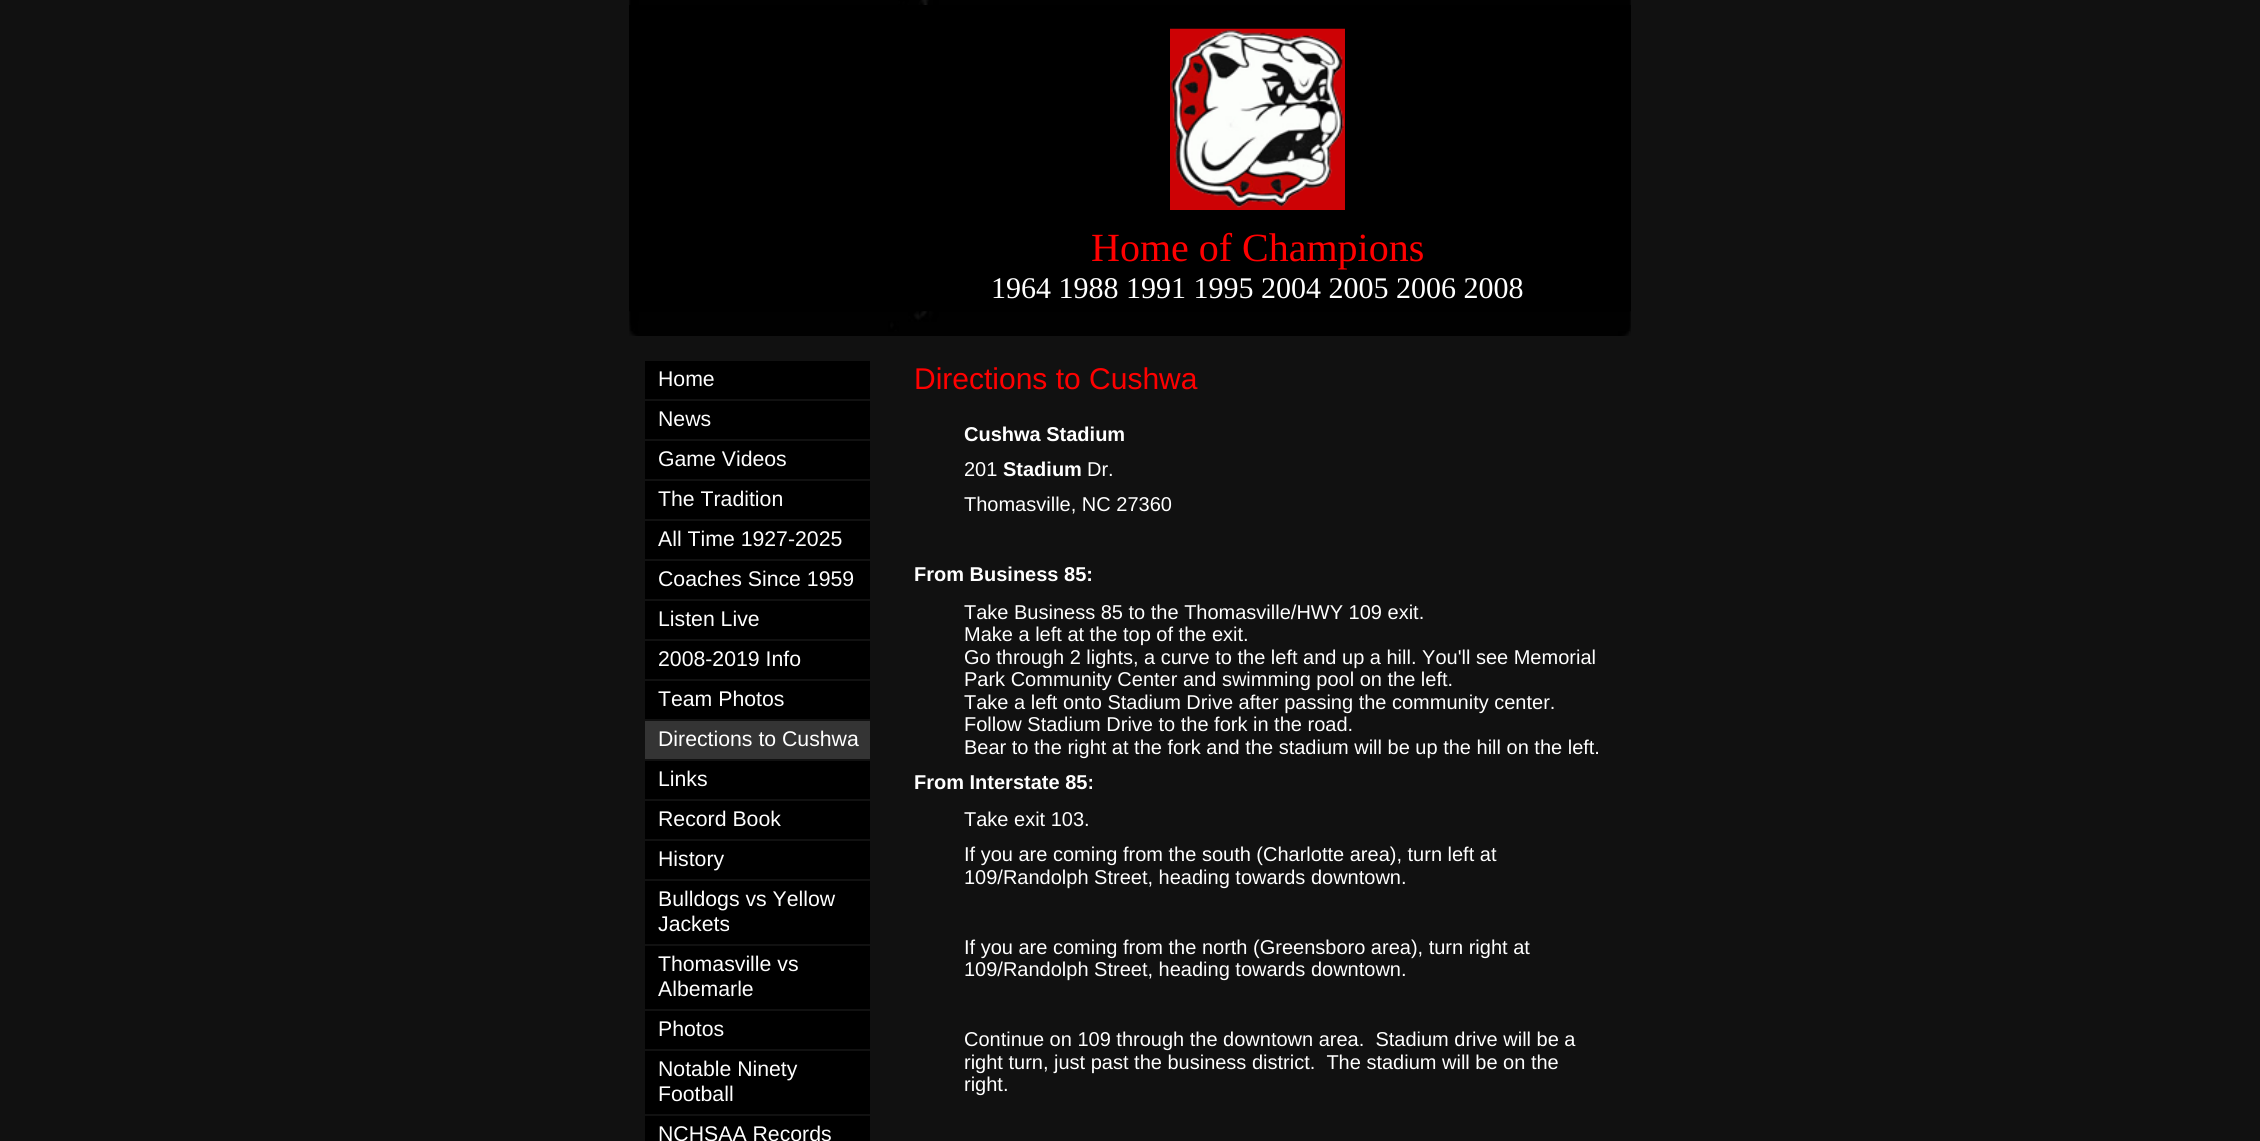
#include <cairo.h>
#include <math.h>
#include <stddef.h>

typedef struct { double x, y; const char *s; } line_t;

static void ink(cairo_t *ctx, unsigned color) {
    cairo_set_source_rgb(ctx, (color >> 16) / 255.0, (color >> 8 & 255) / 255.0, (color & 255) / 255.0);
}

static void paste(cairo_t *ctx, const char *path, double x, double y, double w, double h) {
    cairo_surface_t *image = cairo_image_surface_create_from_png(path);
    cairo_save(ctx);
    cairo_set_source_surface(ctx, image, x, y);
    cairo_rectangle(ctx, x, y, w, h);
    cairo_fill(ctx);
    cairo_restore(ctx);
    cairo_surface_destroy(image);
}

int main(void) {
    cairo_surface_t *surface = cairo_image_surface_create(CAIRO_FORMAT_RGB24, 2260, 1141);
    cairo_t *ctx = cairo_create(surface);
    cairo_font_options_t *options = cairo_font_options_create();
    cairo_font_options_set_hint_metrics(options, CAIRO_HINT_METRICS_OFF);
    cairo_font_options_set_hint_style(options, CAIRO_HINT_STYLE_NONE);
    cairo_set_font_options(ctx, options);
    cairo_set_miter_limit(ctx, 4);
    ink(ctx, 0x111111);
    cairo_paint(ctx);
    ink(ctx, 0x000000);
    cairo_rectangle(ctx, 629, 5, 1002, 307);
    cairo_fill(ctx);
    paste(ctx, "media/1.png", 629, 0, 1002, 5);
    paste(ctx, "media/2.png", 1170, 28, 175, 182);
    cairo_select_font_face(ctx, "Liberation Serif", CAIRO_FONT_SLANT_NORMAL, CAIRO_FONT_WEIGHT_NORMAL);
    cairo_set_font_size(ctx, 40);
    ink(ctx, 0xFF0000);
    cairo_move_to(ctx, 1091, 261);
    cairo_show_text(ctx, "Home of Champions");
    cairo_set_font_size(ctx, 30);
    ink(ctx, 0xFFFFFF);
    cairo_move_to(ctx, 991, 298);
    cairo_show_text(ctx, "1964 1988 1991 1995 2004 2005 2006 2008");
    paste(ctx, "media/3.png", 629, 311, 1002, 25);
    ink(ctx, 0x000000);
    cairo_rectangle(ctx, 645, 361, 225, 38);
    cairo_fill(ctx);
    cairo_select_font_face(ctx, "Liberation Sans", CAIRO_FONT_SLANT_NORMAL, CAIRO_FONT_WEIGHT_NORMAL);
    cairo_set_font_size(ctx, 21.25);
    ink(ctx, 0xFFFFFF);
    cairo_move_to(ctx, 658, 386);
    cairo_show_text(ctx, "Home");
    ink(ctx, 0x000000);
    cairo_rectangle(ctx, 645, 401, 225, 38);
    cairo_fill(ctx);
    ink(ctx, 0xFFFFFF);
    cairo_move_to(ctx, 658, 426);
    cairo_show_text(ctx, "News");
    ink(ctx, 0x000000);
    cairo_rectangle(ctx, 645, 441, 225, 38);
    cairo_fill(ctx);
    ink(ctx, 0xFFFFFF);
    cairo_move_to(ctx, 658, 466);
    cairo_show_text(ctx, "Game Videos");
    ink(ctx, 0x000000);
    cairo_rectangle(ctx, 645, 481, 225, 38);
    cairo_fill(ctx);
    ink(ctx, 0xFFFFFF);
    cairo_move_to(ctx, 658, 506);
    cairo_show_text(ctx, "The Tradition");
    ink(ctx, 0x000000);
    cairo_rectangle(ctx, 645, 521, 225, 38);
    cairo_fill(ctx);
    ink(ctx, 0xFFFFFF);
    cairo_move_to(ctx, 658, 546);
    cairo_show_text(ctx, "All Time 1927-2025");
    ink(ctx, 0x000000);
    cairo_rectangle(ctx, 645, 561, 225, 38);
    cairo_fill(ctx);
    ink(ctx, 0xFFFFFF);
    cairo_move_to(ctx, 658, 586);
    cairo_show_text(ctx, "Coaches Since 1959");
    ink(ctx, 0x000000);
    cairo_rectangle(ctx, 645, 601, 225, 38);
    cairo_fill(ctx);
    ink(ctx, 0xFFFFFF);
    cairo_move_to(ctx, 658, 626);
    cairo_show_text(ctx, "Listen Live");
    ink(ctx, 0x000000);
    cairo_rectangle(ctx, 645, 641, 225, 38);
    cairo_fill(ctx);
    ink(ctx, 0xFFFFFF);
    cairo_move_to(ctx, 658, 666);
    cairo_show_text(ctx, "2008-2019 Info");
    ink(ctx, 0x000000);
    cairo_rectangle(ctx, 645, 681, 225, 38);
    cairo_fill(ctx);
    ink(ctx, 0xFFFFFF);
    cairo_move_to(ctx, 658, 706);
    cairo_show_text(ctx, "Team Photos");
    ink(ctx, 0x343434);
    cairo_rectangle(ctx, 645, 721, 225, 38);
    cairo_fill(ctx);
    ink(ctx, 0xFFFFFF);
    cairo_move_to(ctx, 658, 746);
    cairo_show_text(ctx, "Directions to Cushwa");
    ink(ctx, 0x000000);
    cairo_rectangle(ctx, 645, 761, 225, 38);
    cairo_fill(ctx);
    ink(ctx, 0xFFFFFF);
    cairo_move_to(ctx, 658, 786);
    cairo_show_text(ctx, "Links");
    ink(ctx, 0x000000);
    cairo_rectangle(ctx, 645, 801, 225, 38);
    cairo_fill(ctx);
    ink(ctx, 0xFFFFFF);
    cairo_move_to(ctx, 658, 826);
    cairo_show_text(ctx, "Record Book");
    ink(ctx, 0x000000);
    cairo_rectangle(ctx, 645, 841, 225, 38);
    cairo_fill(ctx);
    ink(ctx, 0xFFFFFF);
    cairo_move_to(ctx, 658, 866);
    cairo_show_text(ctx, "History");
    ink(ctx, 0x000000);
    cairo_rectangle(ctx, 645, 881, 225, 63);
    cairo_fill(ctx);
    ink(ctx, 0xFFFFFF);
    cairo_move_to(ctx, 658, 906);
    cairo_show_text(ctx, "Bulldogs vs Yellow");
    cairo_move_to(ctx, 658, 931);
    cairo_show_text(ctx, "Jackets");
    ink(ctx, 0x000000);
    cairo_rectangle(ctx, 645, 946, 225, 63);
    cairo_fill(ctx);
    ink(ctx, 0xFFFFFF);
    cairo_move_to(ctx, 658, 971);
    cairo_show_text(ctx, "Thomasville vs");
    cairo_move_to(ctx, 658, 996);
    cairo_show_text(ctx, "Albemarle");
    ink(ctx, 0x000000);
    cairo_rectangle(ctx, 645, 1011, 225, 38);
    cairo_fill(ctx);
    ink(ctx, 0xFFFFFF);
    cairo_move_to(ctx, 658, 1036);
    cairo_show_text(ctx, "Photos");
    ink(ctx, 0x000000);
    cairo_rectangle(ctx, 645, 1051, 225, 63);
    cairo_fill(ctx);
    ink(ctx, 0xFFFFFF);
    cairo_move_to(ctx, 658, 1076);
    cairo_show_text(ctx, "Notable Ninety");
    cairo_move_to(ctx, 658, 1101);
    cairo_show_text(ctx, "Football");
    ink(ctx, 0x000000);
    cairo_rectangle(ctx, 645, 1116, 225, 25);
    cairo_fill(ctx);
    ink(ctx, 0xFFFFFF);
    cairo_move_to(ctx, 658, 1141);
    cairo_show_text(ctx, "NCHSAA Records");
    cairo_set_font_size(ctx, 30);
    ink(ctx, 0xFF0000);
    cairo_move_to(ctx, 914, 389);
    cairo_show_text(ctx, "Directions to Cushwa");
    cairo_select_font_face(ctx, "Liberation Sans", CAIRO_FONT_SLANT_NORMAL, CAIRO_FONT_WEIGHT_BOLD);
    cairo_set_font_size(ctx, 20);
    ink(ctx, 0xFFFFFF);
    cairo_move_to(ctx, 964, 441);
    cairo_show_text(ctx, "Cushwa Stadium");
    cairo_select_font_face(ctx, "Liberation Sans", CAIRO_FONT_SLANT_NORMAL, CAIRO_FONT_WEIGHT_NORMAL);
    cairo_move_to(ctx, 964, 476);
    cairo_show_text(ctx, "201");
    cairo_select_font_face(ctx, "Liberation Sans", CAIRO_FONT_SLANT_NORMAL, CAIRO_FONT_WEIGHT_BOLD);
    cairo_move_to(ctx, 1003, 476);
    cairo_show_text(ctx, "Stadium");
    cairo_select_font_face(ctx, "Liberation Sans", CAIRO_FONT_SLANT_NORMAL, CAIRO_FONT_WEIGHT_NORMAL);
    cairo_move_to(ctx, 1087, 476);
    cairo_show_text(ctx, "Dr.");
    cairo_move_to(ctx, 964, 511);
    cairo_show_text(ctx, "Thomasville, NC 27360");
    cairo_select_font_face(ctx, "Liberation Sans", CAIRO_FONT_SLANT_NORMAL, CAIRO_FONT_WEIGHT_BOLD);
    cairo_move_to(ctx, 914, 581);
    cairo_show_text(ctx, "From Business 85:");
    cairo_select_font_face(ctx, "Liberation Sans", CAIRO_FONT_SLANT_NORMAL, CAIRO_FONT_WEIGHT_NORMAL);
    {
        static const line_t items[] = {
            {964, 619, "Take Business 85 to the Thomasville/HWY 109 exit."},
            {964, 641, "Make a left at the top of the exit."},
            {964, 664, "Go through 2 lights, a curve to the left and up a hill. You'll see Memorial"},
            {964, 686, "Park Community Center and swimming pool on the left."},
            {964, 709, "Take a left onto Stadium Drive after passing the community center."},
            {964, 731, "Follow Stadium Drive to the fork in the road."},
            {964, 754, "Bear to the right at the fork and the stadium will be up the hill on the left."},
        };
        for (size_t i = 0; i < sizeof items / sizeof *items; i++) {
            cairo_move_to(ctx, items[i].x, items[i].y);
            cairo_show_text(ctx, items[i].s);
        }
    }
    cairo_select_font_face(ctx, "Liberation Sans", CAIRO_FONT_SLANT_NORMAL, CAIRO_FONT_WEIGHT_BOLD);
    cairo_move_to(ctx, 914, 789);
    cairo_show_text(ctx, "From Interstate 85:");
    cairo_select_font_face(ctx, "Liberation Sans", CAIRO_FONT_SLANT_NORMAL, CAIRO_FONT_WEIGHT_NORMAL);
    {
        static const line_t items[] = {
            {964, 826, "Take exit 103."},
            {964, 861, "If you are coming from the south (Charlotte area), turn left at"},
            {964, 884, "109/Randolph Street, heading towards downtown."},
            {964, 954, "If you are coming from the north (Greensboro area), turn right at"},
            {964, 976, "109/Randolph Street, heading towards downtown."},
            {964, 1046, "Continue on 109 through the downtown area.  Stadium drive will be a"},
            {964, 1069, "right turn, just past the business district.  The stadium will be on the"},
            {964, 1091, "right."},
        };
        for (size_t i = 0; i < sizeof items / sizeof *items; i++) {
            cairo_move_to(ctx, items[i].x, items[i].y);
            cairo_show_text(ctx, items[i].s);
        }
    }
    cairo_surface_write_to_png(surface, "image.png");
    cairo_font_options_destroy(options);
    cairo_destroy(ctx);
    cairo_surface_destroy(surface);
    return 0;
}
